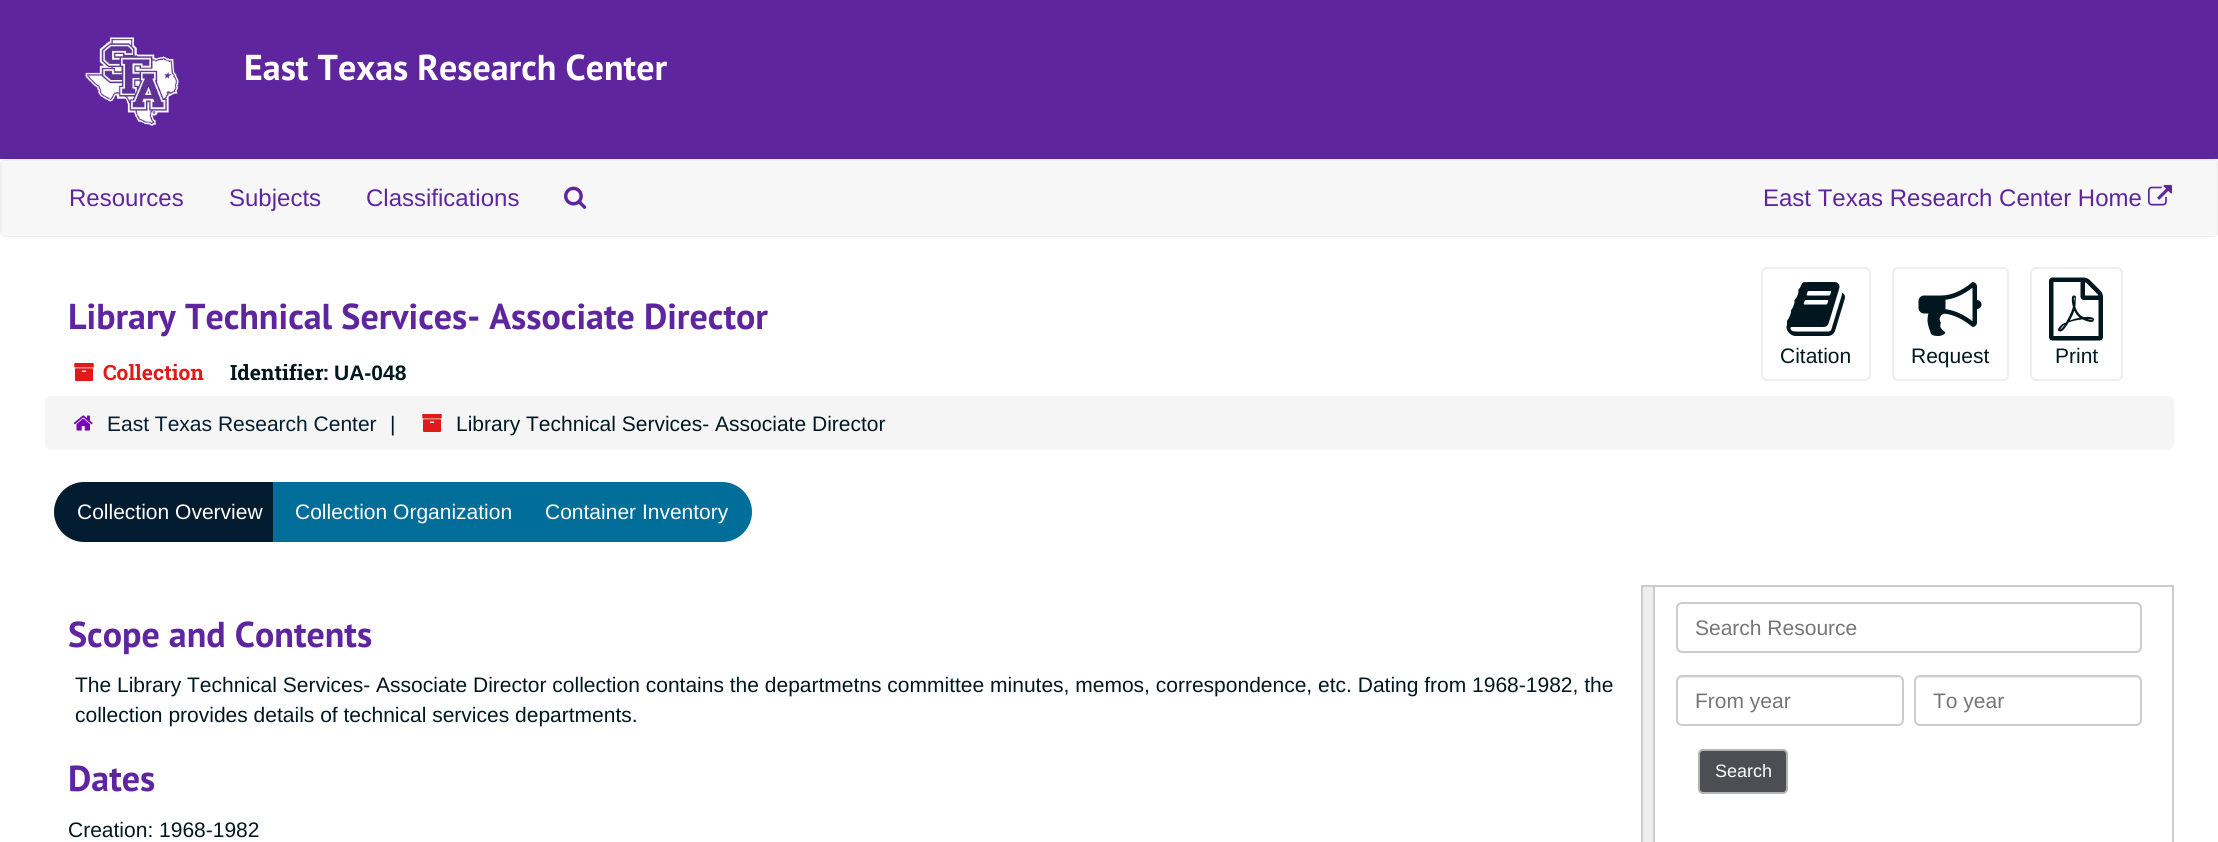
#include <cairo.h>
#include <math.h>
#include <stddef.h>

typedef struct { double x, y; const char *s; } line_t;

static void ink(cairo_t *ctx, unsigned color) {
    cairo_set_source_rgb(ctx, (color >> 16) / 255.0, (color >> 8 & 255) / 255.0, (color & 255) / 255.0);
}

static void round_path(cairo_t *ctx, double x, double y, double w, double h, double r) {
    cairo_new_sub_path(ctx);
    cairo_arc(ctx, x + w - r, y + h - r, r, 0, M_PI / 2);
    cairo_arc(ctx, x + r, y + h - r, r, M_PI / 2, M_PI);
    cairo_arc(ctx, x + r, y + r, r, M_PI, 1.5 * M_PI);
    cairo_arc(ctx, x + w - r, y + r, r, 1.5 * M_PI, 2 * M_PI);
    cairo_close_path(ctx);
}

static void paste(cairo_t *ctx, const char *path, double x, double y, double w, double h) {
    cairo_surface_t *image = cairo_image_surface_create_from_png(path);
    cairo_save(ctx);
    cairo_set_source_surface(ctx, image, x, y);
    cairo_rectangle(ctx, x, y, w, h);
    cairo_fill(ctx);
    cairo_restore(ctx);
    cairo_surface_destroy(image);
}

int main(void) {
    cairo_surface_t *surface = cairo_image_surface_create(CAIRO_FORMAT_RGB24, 2218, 842);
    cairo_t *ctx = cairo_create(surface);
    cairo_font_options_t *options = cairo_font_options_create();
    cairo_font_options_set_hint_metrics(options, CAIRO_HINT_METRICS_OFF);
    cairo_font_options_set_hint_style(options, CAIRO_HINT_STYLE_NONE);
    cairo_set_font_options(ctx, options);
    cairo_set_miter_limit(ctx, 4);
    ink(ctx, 0xFFFFFF);
    cairo_paint(ctx);
    ink(ctx, 0x5F259F);
    cairo_rectangle(ctx, 0, 0, 2218, 159);
    cairo_fill(ctx);
    paste(ctx, "media/1.png", 85, 37, 94, 89);
    cairo_select_font_face(ctx, "PT Sans", CAIRO_FONT_SLANT_NORMAL, CAIRO_FONT_WEIGHT_BOLD);
    cairo_set_font_size(ctx, 36);
    ink(ctx, 0xFFFFFF);
    cairo_move_to(ctx, 244, 80);
    cairo_show_text(ctx, "East Texas Research Center");
    round_path(ctx, 1, 160, 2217, 76, 5);
    ink(ctx, 0xEEEEEE);
    cairo_stroke(ctx);
    ink(ctx, 0xF7F7F7);
    cairo_rectangle(ctx, 2, 161, 2215, 75);
    cairo_fill(ctx);
    cairo_select_font_face(ctx, "Liberation Sans", CAIRO_FONT_SLANT_NORMAL, CAIRO_FONT_WEIGHT_NORMAL);
    cairo_set_font_size(ctx, 24);
    ink(ctx, 0x5F259F);
    {
        static const line_t items[] = {
            {69, 206, "Resources"},
            {229, 206, "Subjects"},
            {366, 206, "Classifications"},
        };
        for (size_t i = 0; i < sizeof items / sizeof *items; i++) {
            cairo_move_to(ctx, items[i].x, items[i].y);
            cairo_show_text(ctx, items[i].s);
        }
    }
    paste(ctx, "media/2.png", 564, 186, 23, 23);
    cairo_move_to(ctx, 1763, 206);
    cairo_show_text(ctx, "East Texas Research Center Home");
    paste(ctx, "media/3.png", 2148, 184, 24, 22);
    cairo_select_font_face(ctx, "PT Sans", CAIRO_FONT_SLANT_NORMAL, CAIRO_FONT_WEIGHT_BOLD);
    cairo_set_font_size(ctx, 36);
    cairo_move_to(ctx, 68, 329);
    cairo_show_text(ctx, "Library Technical Services- Associate Director");
    paste(ctx, "media/4.png", 74, 363, 20, 18);
    cairo_select_font_face(ctx, "Roboto Slab", CAIRO_FONT_SLANT_NORMAL, CAIRO_FONT_WEIGHT_BOLD);
    cairo_set_font_size(ctx, 21);
    ink(ctx, 0xE01919);
    cairo_move_to(ctx, 103, 380);
    cairo_show_text(ctx, "Collection");
    ink(ctx, 0x00171F);
    cairo_move_to(ctx, 230, 380);
    cairo_show_text(ctx, "Identifier:");
    cairo_select_font_face(ctx, "Liberation Sans", CAIRO_FONT_SLANT_NORMAL, CAIRO_FONT_WEIGHT_BOLD);
    cairo_move_to(ctx, 334, 380);
    cairo_show_text(ctx, "UA-048");
    round_path(ctx, 1762, 268, 108, 112, 5);
    ink(ctx, 0xEEEEEE);
    cairo_stroke(ctx);
    paste(ctx, "media/5.png", 1786, 282, 59, 54);
    cairo_select_font_face(ctx, "Liberation Sans", CAIRO_FONT_SLANT_NORMAL, CAIRO_FONT_WEIGHT_NORMAL);
    ink(ctx, 0x00171F);
    cairo_move_to(ctx, 1780, 363);
    cairo_show_text(ctx, "Citation");
    round_path(ctx, 1893, 268, 115, 112, 5);
    ink(ctx, 0xEEEEEE);
    cairo_stroke(ctx);
    paste(ctx, "media/6.png", 1918, 282, 64, 54);
    ink(ctx, 0x00171F);
    cairo_move_to(ctx, 1911, 363);
    cairo_show_text(ctx, "Request");
    round_path(ctx, 2031, 268, 91, 112, 5);
    ink(ctx, 0xEEEEEE);
    cairo_stroke(ctx);
    paste(ctx, "media/7.png", 2049, 277, 54, 64);
    ink(ctx, 0x00171F);
    cairo_move_to(ctx, 2055, 363);
    cairo_show_text(ctx, "Print");
    ink(ctx, 0xF5F5F5);
    round_path(ctx, 45, 396, 2129, 54, 6);
    cairo_fill(ctx);
    paste(ctx, "media/8.png", 73, 415, 20, 16);
    ink(ctx, 0x041C2F);
    cairo_move_to(ctx, 107, 431);
    cairo_show_text(ctx, "East Texas Research Center");
    ink(ctx, 0x00171F);
    cairo_move_to(ctx, 390, 431);
    cairo_show_text(ctx, "|");
    paste(ctx, "media/9.png", 422, 414, 20, 18);
    cairo_move_to(ctx, 456, 431);
    cairo_show_text(ctx, "Library Technical Services- Associate Director");
    ink(ctx, 0x041C2F);
    cairo_new_path(ctx);
    cairo_move_to(ctx, 84, 482);
    cairo_line_to(ctx, 285, 482);
    cairo_line_to(ctx, 285, 542);
    cairo_line_to(ctx, 84, 542);
    cairo_curve_to(ctx, 67.5, 542, 54, 528.5, 54, 512);
    cairo_curve_to(ctx, 54, 495.5, 67.5, 482, 84, 482);
    cairo_close_path(ctx);
    cairo_fill(ctx);
    ink(ctx, 0xFFFFFF);
    cairo_move_to(ctx, 77, 519);
    cairo_show_text(ctx, "Collection Overview");
    ink(ctx, 0x006E99);
    cairo_rectangle(ctx, 273, 482, 249, 60);
    cairo_fill(ctx);
    ink(ctx, 0xFFFFFF);
    cairo_move_to(ctx, 295, 519);
    cairo_show_text(ctx, "Collection Organization");
    ink(ctx, 0x006E99);
    cairo_new_path(ctx);
    cairo_move_to(ctx, 522, 482);
    cairo_line_to(ctx, 722, 482);
    cairo_curve_to(ctx, 738.5, 482, 752, 495.5, 752, 512);
    cairo_curve_to(ctx, 752, 528.5, 738.5, 542, 722, 542);
    cairo_line_to(ctx, 522, 542);
    cairo_close_path(ctx);
    cairo_fill(ctx);
    ink(ctx, 0xFFFFFF);
    cairo_move_to(ctx, 545, 519);
    cairo_show_text(ctx, "Container Inventory");
    cairo_select_font_face(ctx, "PT Sans", CAIRO_FONT_SLANT_NORMAL, CAIRO_FONT_WEIGHT_BOLD);
    cairo_set_font_size(ctx, 36);
    ink(ctx, 0x5F259F);
    cairo_move_to(ctx, 68, 647);
    cairo_show_text(ctx, "Scope and Contents");
    cairo_select_font_face(ctx, "Liberation Sans", CAIRO_FONT_SLANT_NORMAL, CAIRO_FONT_WEIGHT_NORMAL);
    cairo_set_font_size(ctx, 21);
    ink(ctx, 0x00171F);
    cairo_move_to(ctx, 75, 692);
    cairo_show_text(ctx, "The Library Technical Services- Associate Director collection contains the departmetns committee minutes, memos, correspondence, etc. Dating from 1968-1982, the");
    cairo_move_to(ctx, 75, 722);
    cairo_show_text(ctx, "collection provides details of technical services departments.");
    cairo_select_font_face(ctx, "PT Sans", CAIRO_FONT_SLANT_NORMAL, CAIRO_FONT_WEIGHT_BOLD);
    cairo_set_font_size(ctx, 36);
    ink(ctx, 0x5F259F);
    cairo_move_to(ctx, 68, 791);
    cairo_show_text(ctx, "Dates");
    cairo_select_font_face(ctx, "Liberation Sans", CAIRO_FONT_SLANT_NORMAL, CAIRO_FONT_WEIGHT_NORMAL);
    cairo_set_font_size(ctx, 21);
    ink(ctx, 0x00171F);
    cairo_move_to(ctx, 68, 837);
    cairo_show_text(ctx, "Creation: 1968-1982");
    cairo_rectangle(ctx, 1642, 586, 531, 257);
    ink(ctx, 0xCCCCCC);
    cairo_stroke(ctx);
    ink(ctx, 0xEEEEEE);
    cairo_rectangle(ctx, 1643, 587, 10, 255);
    cairo_fill(ctx);
    ink(ctx, 0xCCCCCC);
    cairo_rectangle(ctx, 1653, 587, 2, 255);
    cairo_fill(ctx);
    ink(ctx, 0xECECEC);
    cairo_new_path(ctx);
    cairo_move_to(ctx, 1682, 604);
    cairo_line_to(ctx, 2136, 604);
    cairo_curve_to(ctx, 2138, 604, 2140, 607, 2140, 609);
    cairo_line_to(ctx, 2140, 649);
    cairo_curve_to(ctx, 2141, 648, 2141, 647, 2141, 646);
    cairo_line_to(ctx, 2141, 608);
    cairo_curve_to(ctx, 2141, 605, 2139, 603, 2136, 603);
    cairo_line_to(ctx, 1682, 603);
    cairo_curve_to(ctx, 1679, 603, 1677, 605, 1677, 608);
    cairo_line_to(ctx, 1677, 609);
    cairo_curve_to(ctx, 1677, 607, 1679, 604, 1682, 604);
    cairo_close_path(ctx);
    cairo_fill(ctx);
    round_path(ctx, 1677, 603, 464, 49, 5);
    ink(ctx, 0xCCCCCC);
    cairo_stroke(ctx);
    ink(ctx, 0x767676);
    cairo_move_to(ctx, 1695, 635);
    cairo_show_text(ctx, "Search Resource");
    ink(ctx, 0xECECEC);
    cairo_new_path(ctx);
    cairo_move_to(ctx, 1682, 678);
    cairo_line_to(ctx, 1898, 678);
    cairo_curve_to(ctx, 1900, 678, 1902, 680, 1902, 682);
    cairo_curve_to(ctx, 1902, 679, 1900, 677, 1897, 677);
    cairo_line_to(ctx, 1682, 677);
    cairo_curve_to(ctx, 1679, 677, 1677, 679, 1677, 682);
    cairo_curve_to(ctx, 1677, 680, 1679, 678, 1682, 678);
    cairo_close_path(ctx);
    cairo_fill(ctx);
    round_path(ctx, 1677, 676, 226, 49, 5);
    ink(ctx, 0xCCCCCC);
    cairo_stroke(ctx);
    ink(ctx, 0x767676);
    cairo_move_to(ctx, 1695, 708);
    cairo_show_text(ctx, "From year");
    ink(ctx, 0xECECEC);
    cairo_new_path(ctx);
    cairo_move_to(ctx, 1920, 678);
    cairo_line_to(ctx, 2136, 678);
    cairo_curve_to(ctx, 2138, 678, 2140, 680, 2140, 682);
    cairo_line_to(ctx, 2140, 723);
    cairo_curve_to(ctx, 2141, 722, 2141, 721, 2141, 720);
    cairo_line_to(ctx, 2141, 682);
    cairo_curve_to(ctx, 2141, 679, 2139, 677, 2136, 677);
    cairo_line_to(ctx, 1921, 677);
    cairo_curve_to(ctx, 1918, 677, 1916, 679, 1916, 682);
    cairo_curve_to(ctx, 1916, 680, 1918, 678, 1920, 678);
    cairo_close_path(ctx);
    cairo_fill(ctx);
    round_path(ctx, 1915, 676, 226, 49, 5);
    ink(ctx, 0xCCCCCC);
    cairo_stroke(ctx);
    ink(ctx, 0x767676);
    cairo_move_to(ctx, 1933, 708);
    cairo_show_text(ctx, "To year");
    ink(ctx, 0x4D4E53);
    round_path(ctx, 1699, 750, 88, 43, 4);
    cairo_fill_preserve(ctx);
    ink(ctx, 0xB3B3B3);
    cairo_stroke(ctx);
    cairo_set_font_size(ctx, 18);
    ink(ctx, 0xFFFFFF);
    cairo_move_to(ctx, 1715, 777);
    cairo_show_text(ctx, "Search");
    cairo_surface_write_to_png(surface, "image.png");
    cairo_font_options_destroy(options);
    cairo_destroy(ctx);
    cairo_surface_destroy(surface);
    return 0;
}
